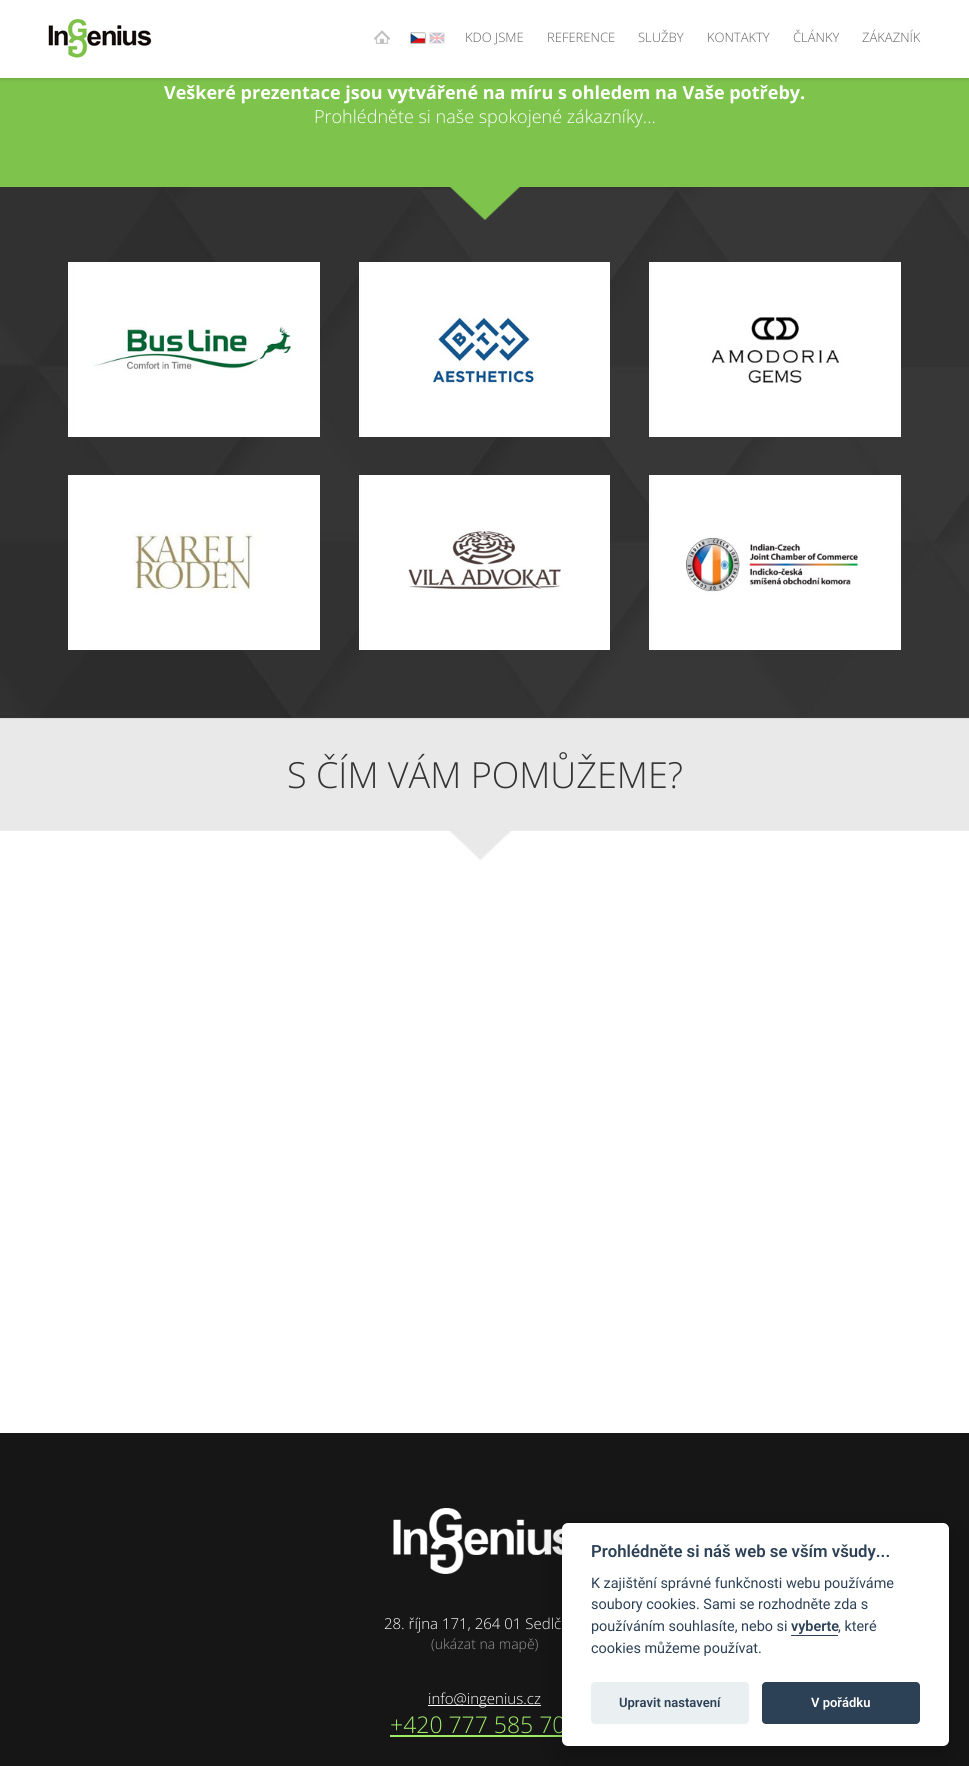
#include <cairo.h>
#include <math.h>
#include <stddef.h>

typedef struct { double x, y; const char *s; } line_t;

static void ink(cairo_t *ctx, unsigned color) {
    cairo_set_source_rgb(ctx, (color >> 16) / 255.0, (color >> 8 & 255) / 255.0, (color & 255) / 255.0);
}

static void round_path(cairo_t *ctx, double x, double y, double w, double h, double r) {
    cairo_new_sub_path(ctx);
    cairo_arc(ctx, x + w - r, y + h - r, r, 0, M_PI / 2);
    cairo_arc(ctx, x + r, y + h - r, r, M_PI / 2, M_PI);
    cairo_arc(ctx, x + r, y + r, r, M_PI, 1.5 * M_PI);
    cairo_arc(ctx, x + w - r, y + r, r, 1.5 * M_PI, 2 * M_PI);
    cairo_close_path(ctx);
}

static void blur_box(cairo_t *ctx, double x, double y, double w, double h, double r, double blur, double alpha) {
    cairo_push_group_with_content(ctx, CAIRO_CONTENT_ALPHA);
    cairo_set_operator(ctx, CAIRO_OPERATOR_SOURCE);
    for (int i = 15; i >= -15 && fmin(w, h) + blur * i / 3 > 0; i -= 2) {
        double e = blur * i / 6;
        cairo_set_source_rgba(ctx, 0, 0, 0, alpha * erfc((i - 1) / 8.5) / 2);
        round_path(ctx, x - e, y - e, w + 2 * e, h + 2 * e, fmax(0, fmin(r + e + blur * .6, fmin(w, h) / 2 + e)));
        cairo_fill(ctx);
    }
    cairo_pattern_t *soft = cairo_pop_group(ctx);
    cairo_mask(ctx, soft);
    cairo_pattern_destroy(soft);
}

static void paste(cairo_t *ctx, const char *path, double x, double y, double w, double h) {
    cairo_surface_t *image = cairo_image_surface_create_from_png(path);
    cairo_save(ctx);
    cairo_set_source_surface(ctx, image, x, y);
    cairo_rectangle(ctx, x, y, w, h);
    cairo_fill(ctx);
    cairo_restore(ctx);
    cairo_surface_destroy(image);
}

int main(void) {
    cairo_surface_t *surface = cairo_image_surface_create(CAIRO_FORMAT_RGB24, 969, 1766);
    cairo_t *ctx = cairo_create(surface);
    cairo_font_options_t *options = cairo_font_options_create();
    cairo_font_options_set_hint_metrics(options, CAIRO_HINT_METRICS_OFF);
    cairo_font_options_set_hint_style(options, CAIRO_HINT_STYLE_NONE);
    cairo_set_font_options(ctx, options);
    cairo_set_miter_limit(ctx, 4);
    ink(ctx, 0xFFFFFF);
    cairo_paint(ctx);
    ink(ctx, 0x7EC34B);
    cairo_rectangle(ctx, 0, 78, 969, 109);
    cairo_fill(ctx);
    ink(ctx, 0x000000);
    blur_box(ctx, 0, 1, 969, 78, 0, 2.5, 0.16);
    ink(ctx, 0xFFFFFF);
    cairo_rectangle(ctx, 0, 0, 969, 78);
    cairo_fill(ctx);
    paste(ctx, "media/1.png", 48, 19, 104, 39);
    paste(ctx, "media/2.png", 374, 30, 16, 14);
    paste(ctx, "media/3.png", 410, 32, 16, 12);
    paste(ctx, "media/4.png", 429, 32, 16, 12);
    cairo_select_font_face(ctx, "Open Sans Light", CAIRO_FONT_SLANT_NORMAL, CAIRO_FONT_WEIGHT_NORMAL);
    cairo_set_font_size(ctx, 13);
    ink(ctx, 0x616161);
    {
        static const line_t items[] = {
            {465, 42, "KDO JSME"},
            {547, 42, "REFERENCE"},
            {638, 42, "SLUŽBY"},
            {707, 42, "KONTAKTY"},
            {793, 42, "ČLÁNKY"},
            {862, 42, "ZÁKAZNÍK"},
        };
        for (size_t i = 0; i < sizeof items / sizeof *items; i++) {
            cairo_move_to(ctx, items[i].x, items[i].y);
            cairo_show_text(ctx, items[i].s);
        }
    }
    paste(ctx, "media/5.png", 0, 187, 969, 531);
    cairo_select_font_face(ctx, "Open Sans", CAIRO_FONT_SLANT_NORMAL, CAIRO_FONT_WEIGHT_BOLD);
    cairo_set_font_size(ctx, 18);
    ink(ctx, 0xFFFFFF);
    cairo_move_to(ctx, 164, 99);
    cairo_show_text(ctx, "Veškeré prezentace jsou vytvářené na míru s ohledem na Vaše potřeby.");
    cairo_select_font_face(ctx, "Open Sans Light", CAIRO_FONT_SLANT_NORMAL, CAIRO_FONT_WEIGHT_NORMAL);
    cairo_move_to(ctx, 314, 123);
    cairo_show_text(ctx, "Prohlédněte si naše spokojené zákazníky...");
    paste(ctx, "media/6.png", 449, 187, 71, 33);
    paste(ctx, "media/7.png", 68, 262, 252, 175);
    paste(ctx, "media/8.png", 359, 262, 251, 175);
    paste(ctx, "media/9.png", 649, 262, 252, 175);
    paste(ctx, "media/10.png", 68, 475, 252, 175);
    paste(ctx, "media/11.png", 359, 475, 251, 175);
    paste(ctx, "media/12.png", 649, 475, 252, 175);
    paste(ctx, "media/13.png", 0, 718, 969, 142);
    cairo_set_font_size(ctx, 36);
    ink(ctx, 0x343434);
    cairo_move_to(ctx, 287, 788);
    cairo_show_text(ctx, "S ČÍM VÁM POMŮŽEME?");
    ink(ctx, 0x161616);
    cairo_rectangle(ctx, 0, 1433, 969, 333);
    cairo_fill(ctx);
    paste(ctx, "media/14.png", 393, 1508, 170, 66);
    cairo_set_font_size(ctx, 15);
    ink(ctx, 0xFFFFFF);
    cairo_move_to(ctx, 384, 1629);
    cairo_show_text(ctx, "28. října 171, 264 01 Sedlč");
    cairo_set_font_size(ctx, 14);
    ink(ctx, 0x969696);
    cairo_move_to(ctx, 431, 1649);
    cairo_show_text(ctx, "(ukázat na mapě)");
    ink(ctx, 0xFFFFFF);
    cairo_rectangle(ctx, 428, 1705, 113, 1);
    cairo_fill(ctx);
    cairo_set_font_size(ctx, 15);
    cairo_move_to(ctx, 428, 1704);
    cairo_show_text(ctx, "info@ingenius.cz");
    cairo_set_font_size(ctx, 23);
    ink(ctx, 0xA0EC69);
    cairo_move_to(ctx, 390, 1733);
    cairo_show_text(ctx, "+420 777 585 70");
    cairo_rectangle(ctx, 390, 1735, 172, 2);
    cairo_fill(ctx);
    ink(ctx, 0x020203);
    blur_box(ctx, 562, 1533, 387, 223, 6, 15, 0.28);
    ink(ctx, 0xFFFFFF);
    round_path(ctx, 562, 1523, 387, 223, 6);
    cairo_fill(ctx);
    cairo_select_font_face(ctx, "Roboto SemiBold", CAIRO_FONT_SLANT_NORMAL, CAIRO_FONT_WEIGHT_NORMAL);
    cairo_set_font_size(ctx, 16.75);
    ink(ctx, 0x2D4156);
    cairo_move_to(ctx, 591, 1557);
    cairo_show_text(ctx, "Prohlédněte si náš web se vším všudy...");
    cairo_select_font_face(ctx, "Roboto", CAIRO_FONT_SLANT_NORMAL, CAIRO_FONT_WEIGHT_NORMAL);
    cairo_set_font_size(ctx, 14.4);
    {
        static const line_t items[] = {
            {591, 1588, "K zajištění správné funkčnosti webu používáme"},
            {591, 1609, "soubory cookies. Sami se rozhodněte zda s"},
            {591, 1631, "používáním souhlasíte, nebo si"},
        };
        for (size_t i = 0; i < sizeof items / sizeof *items; i++) {
            cairo_move_to(ctx, items[i].x, items[i].y);
            cairo_show_text(ctx, items[i].s);
        }
    }
    cairo_select_font_face(ctx, "Roboto SemiBold", CAIRO_FONT_SLANT_NORMAL, CAIRO_FONT_WEIGHT_NORMAL);
    cairo_move_to(ctx, 791, 1631);
    cairo_show_text(ctx, "vyberte");
    cairo_rectangle(ctx, 791, 1635, 47, 1);
    cairo_fill(ctx);
    cairo_select_font_face(ctx, "Roboto", CAIRO_FONT_SLANT_NORMAL, CAIRO_FONT_WEIGHT_NORMAL);
    cairo_move_to(ctx, 838, 1631);
    cairo_show_text(ctx, ", které");
    cairo_move_to(ctx, 591, 1653);
    cairo_show_text(ctx, "cookies můžeme používat.");
    ink(ctx, 0xEAEFF2);
    round_path(ctx, 591, 1682, 158, 42, 4);
    cairo_fill(ctx);
    cairo_select_font_face(ctx, "Roboto SemiBold", CAIRO_FONT_SLANT_NORMAL, CAIRO_FONT_WEIGHT_NORMAL);
    cairo_set_font_size(ctx, 13);
    ink(ctx, 0x2D4156);
    cairo_move_to(ctx, 619, 1707);
    cairo_show_text(ctx, "Upravit nastavení");
    round_path(ctx, 762, 1682, 158, 42, 4);
    cairo_fill(ctx);
    ink(ctx, 0xFFFFFF);
    cairo_move_to(ctx, 811, 1707);
    cairo_show_text(ctx, "V pořádku");
    cairo_surface_write_to_png(surface, "image.png");
    cairo_font_options_destroy(options);
    cairo_destroy(ctx);
    cairo_surface_destroy(surface);
    return 0;
}
